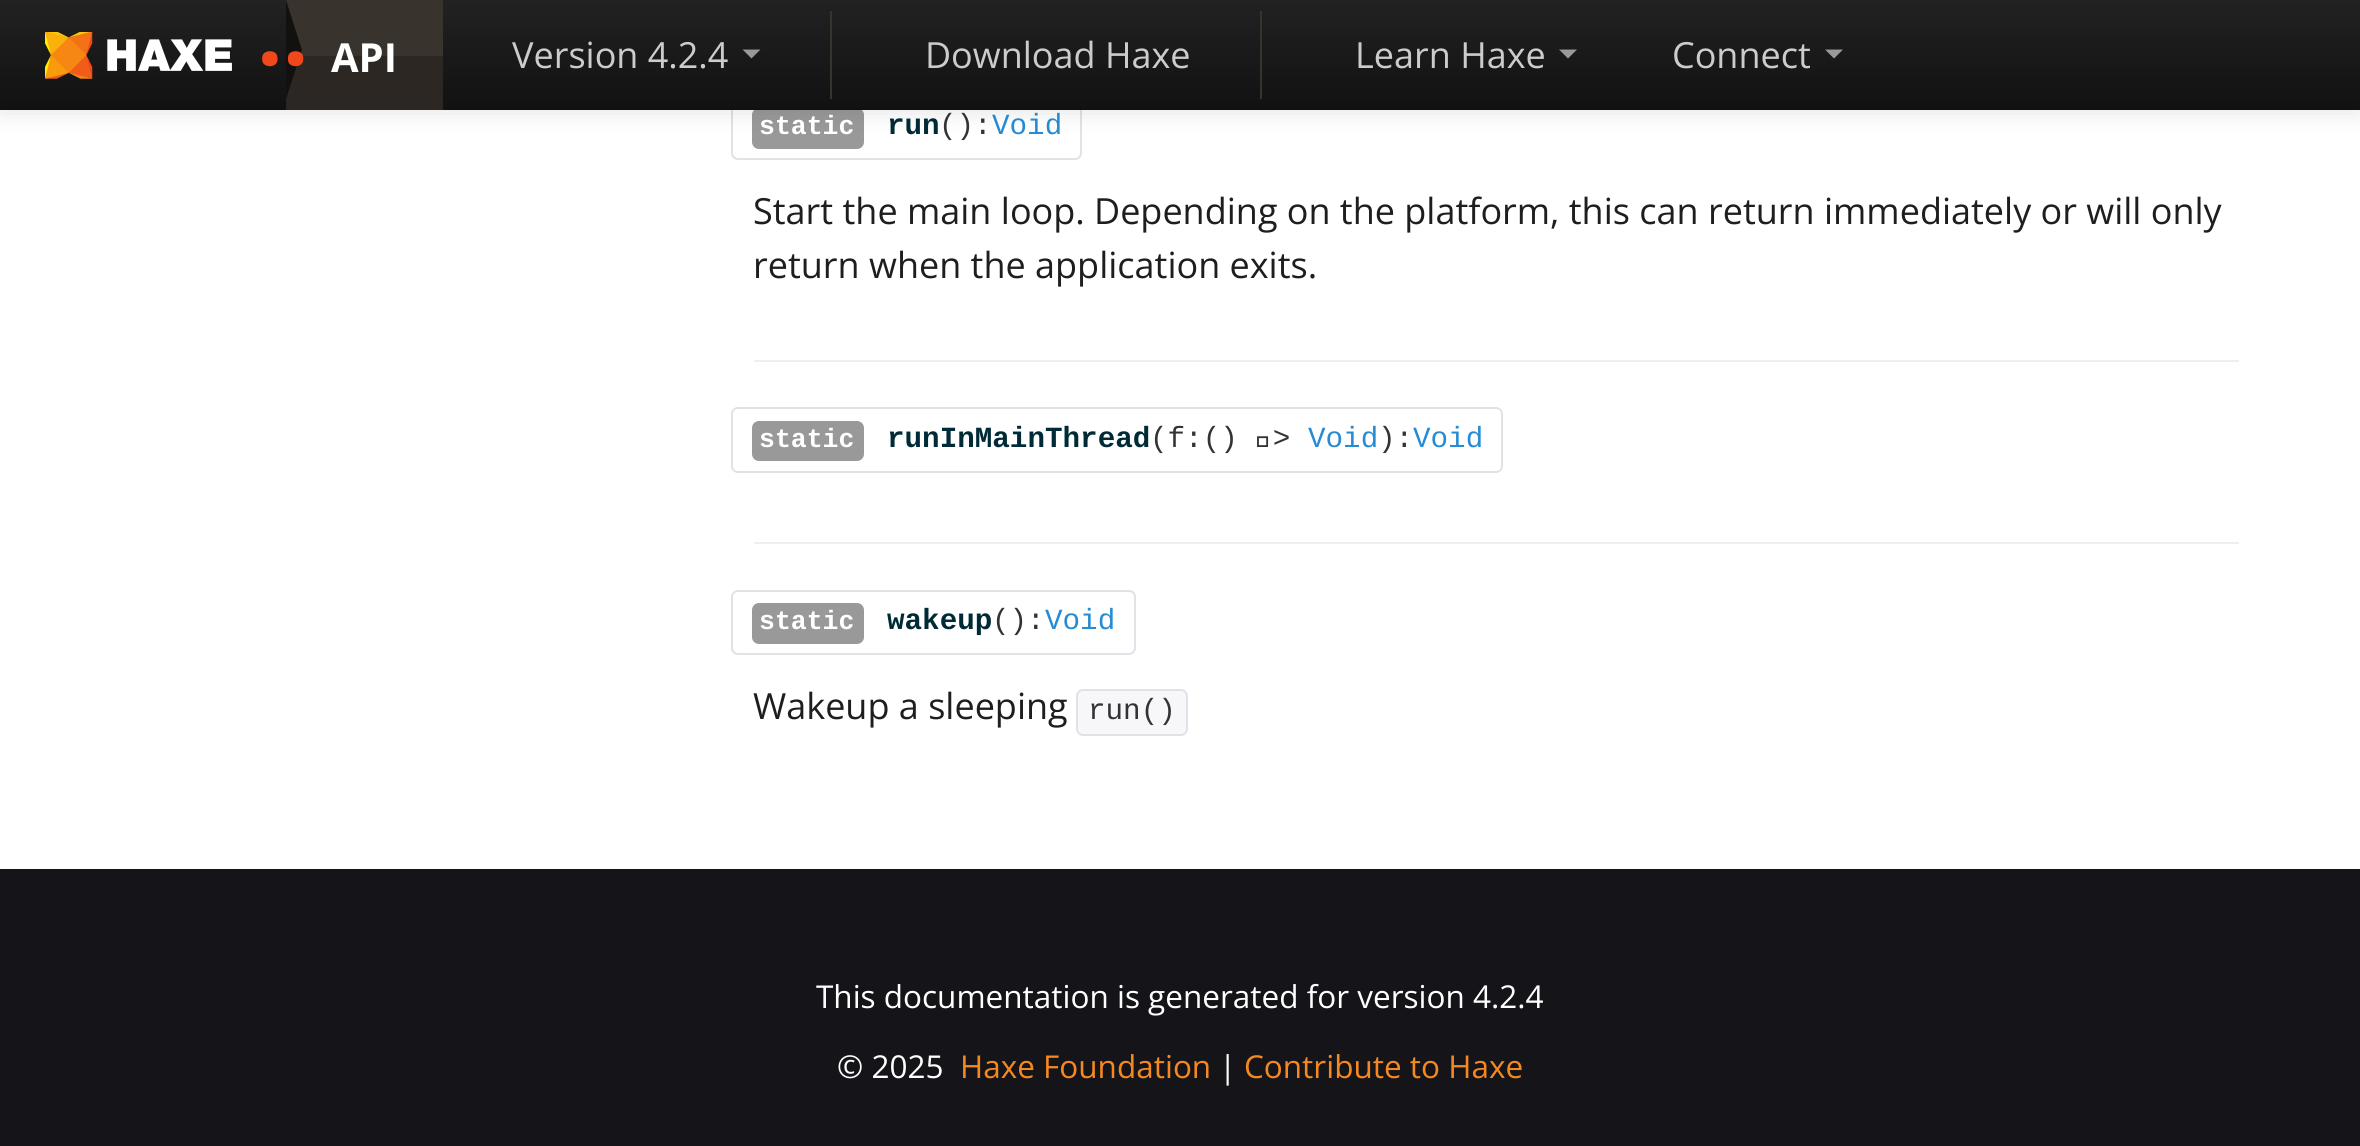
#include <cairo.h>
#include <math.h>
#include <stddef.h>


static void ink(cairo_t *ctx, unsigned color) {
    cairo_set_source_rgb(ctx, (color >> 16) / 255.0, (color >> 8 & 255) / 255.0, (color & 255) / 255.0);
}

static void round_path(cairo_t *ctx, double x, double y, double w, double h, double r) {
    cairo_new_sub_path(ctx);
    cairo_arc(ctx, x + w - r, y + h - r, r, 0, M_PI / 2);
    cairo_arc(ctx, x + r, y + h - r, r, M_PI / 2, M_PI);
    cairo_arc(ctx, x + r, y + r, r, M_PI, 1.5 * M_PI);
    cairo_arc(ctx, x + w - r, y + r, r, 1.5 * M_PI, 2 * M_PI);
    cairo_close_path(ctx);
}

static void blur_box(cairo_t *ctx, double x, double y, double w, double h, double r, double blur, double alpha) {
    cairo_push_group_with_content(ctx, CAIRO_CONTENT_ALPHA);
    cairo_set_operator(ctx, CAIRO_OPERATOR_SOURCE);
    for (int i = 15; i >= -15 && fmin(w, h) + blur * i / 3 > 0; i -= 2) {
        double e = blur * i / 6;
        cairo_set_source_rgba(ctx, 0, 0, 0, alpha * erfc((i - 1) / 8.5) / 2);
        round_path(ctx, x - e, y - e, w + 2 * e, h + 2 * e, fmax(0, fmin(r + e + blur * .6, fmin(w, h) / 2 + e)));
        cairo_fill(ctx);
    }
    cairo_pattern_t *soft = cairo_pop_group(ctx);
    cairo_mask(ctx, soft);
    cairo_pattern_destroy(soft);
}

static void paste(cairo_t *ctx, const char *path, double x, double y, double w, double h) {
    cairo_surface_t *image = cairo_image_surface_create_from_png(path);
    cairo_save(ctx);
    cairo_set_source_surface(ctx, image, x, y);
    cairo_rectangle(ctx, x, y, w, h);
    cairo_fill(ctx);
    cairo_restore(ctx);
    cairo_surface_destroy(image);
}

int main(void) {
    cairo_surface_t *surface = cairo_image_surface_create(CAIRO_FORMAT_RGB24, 2360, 1146);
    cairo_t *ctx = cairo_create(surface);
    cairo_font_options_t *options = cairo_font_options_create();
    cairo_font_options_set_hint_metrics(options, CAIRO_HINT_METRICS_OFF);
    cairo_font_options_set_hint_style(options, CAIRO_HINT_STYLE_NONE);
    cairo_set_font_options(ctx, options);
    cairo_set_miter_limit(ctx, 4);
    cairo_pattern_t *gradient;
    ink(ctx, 0xFFFFFF);
    cairo_paint(ctx);
    round_path(ctx, 732, 96, 349, 63, 6);
    ink(ctx, 0xE1E1E8);
    cairo_stroke(ctx);
    ink(ctx, 0x999999);
    round_path(ctx, 752, 108, 112, 41, 7);
    cairo_fill(ctx);
    ink(ctx, 0x000000);
    blur_box(ctx, 0, 2, 2360, 111, 0, 11, 0.1);
    gradient = cairo_pattern_create_linear(1180, 0, 1180, 110);
    cairo_pattern_add_color_stop_rgba(gradient, 0, 0.133, 0.133, 0.133, 1);
    cairo_pattern_add_color_stop_rgba(gradient, 1, 0.067, 0.067, 0.067, 1);
    cairo_set_source(ctx, gradient);
    cairo_pattern_destroy(gradient);
    cairo_rectangle(ctx, 0, 0, 2360, 110);
    cairo_fill(ctx);
    paste(ctx, "media/1.png", 45, 32, 187, 47);
    ink(ctx, 0x39332D);
    cairo_rectangle(ctx, 286, 0, 157, 56);
    cairo_fill(ctx);
    ink(ctx, 0x2C2722);
    cairo_rectangle(ctx, 286, 56, 157, 54);
    cairo_fill(ctx);
    ink(ctx, 0x13110F);
    cairo_new_path(ctx);
    cairo_move_to(ctx, 286, 99);
    cairo_line_to(ctx, 286, 0);
    cairo_line_to(ctx, 302, 50);
    cairo_close_path(ctx);
    cairo_fill(ctx);
    cairo_select_font_face(ctx, "Open Sans", CAIRO_FONT_SLANT_NORMAL, CAIRO_FONT_WEIGHT_BOLD);
    cairo_set_font_size(ctx, 90);
    ink(ctx, 0xF1471D);
    cairo_move_to(ctx, 257, 65);
    cairo_show_text(ctx, "..");
    cairo_set_font_size(ctx, 40);
    ink(ctx, 0xFFFFFF);
    cairo_move_to(ctx, 331, 72);
    cairo_show_text(ctx, "API");
    cairo_select_font_face(ctx, "Open Sans", CAIRO_FONT_SLANT_NORMAL, CAIRO_FONT_WEIGHT_NORMAL);
    cairo_set_font_size(ctx, 36);
    ink(ctx, 0xCCCCCC);
    cairo_move_to(ctx, 512, 68);
    cairo_show_text(ctx, "Version 4.2.4");
    ink(ctx, 0x999999);
    cairo_new_path(ctx);
    cairo_move_to(ctx, 742.5, 49.5);
    cairo_line_to(ctx, 760.5, 49.5);
    cairo_line_to(ctx, 751.5, 58.5);
    cairo_close_path(ctx);
    cairo_fill(ctx);
    ink(ctx, 0x39332D);
    cairo_rectangle(ctx, 830, 11, 2, 88);
    cairo_fill(ctx);
    ink(ctx, 0xCCCCCC);
    cairo_move_to(ctx, 925, 68);
    cairo_show_text(ctx, "Download Haxe");
    ink(ctx, 0x39332D);
    cairo_rectangle(ctx, 1260, 11, 2, 88);
    cairo_fill(ctx);
    ink(ctx, 0xCCCCCC);
    cairo_move_to(ctx, 1355, 68);
    cairo_show_text(ctx, "Learn Haxe");
    ink(ctx, 0x999999);
    cairo_new_path(ctx);
    cairo_move_to(ctx, 1559, 49.5);
    cairo_line_to(ctx, 1577, 49.5);
    cairo_line_to(ctx, 1568, 58.5);
    cairo_close_path(ctx);
    cairo_fill(ctx);
    ink(ctx, 0xCCCCCC);
    cairo_move_to(ctx, 1672, 68);
    cairo_show_text(ctx, "Connect");
    ink(ctx, 0x999999);
    cairo_new_path(ctx);
    cairo_move_to(ctx, 1825, 49.5);
    cairo_line_to(ctx, 1843, 49.5);
    cairo_line_to(ctx, 1834, 58.5);
    cairo_close_path(ctx);
    cairo_fill(ctx);
    cairo_select_font_face(ctx, "Liberation Mono", CAIRO_FONT_SLANT_NORMAL, CAIRO_FONT_WEIGHT_BOLD);
    cairo_set_font_size(ctx, 26.5);
    ink(ctx, 0xFFFFFF);
    cairo_move_to(ctx, 759, 134);
    cairo_show_text(ctx, "static");
    cairo_set_font_size(ctx, 29.25);
    ink(ctx, 0x002B36);
    cairo_move_to(ctx, 887, 134);
    cairo_show_text(ctx, "run");
    cairo_select_font_face(ctx, "Liberation Mono", CAIRO_FONT_SLANT_NORMAL, CAIRO_FONT_WEIGHT_NORMAL);
    ink(ctx, 0x333333);
    cairo_move_to(ctx, 939, 134);
    cairo_show_text(ctx, "():");
    ink(ctx, 0x268BD2);
    cairo_move_to(ctx, 992, 134);
    cairo_show_text(ctx, "Void");
    cairo_select_font_face(ctx, "Open Sans", CAIRO_FONT_SLANT_NORMAL, CAIRO_FONT_WEIGHT_NORMAL);
    cairo_set_font_size(ctx, 36);
    ink(ctx, 0x1E1E1E);
    cairo_move_to(ctx, 753, 224);
    cairo_show_text(ctx, "Start the main loop. Depending on the platform, this can return immediately or will only");
    cairo_move_to(ctx, 753, 278);
    cairo_show_text(ctx, "return when the application exits.");
    ink(ctx, 0xEEEEEE);
    cairo_rectangle(ctx, 754, 360, 1485, 2);
    cairo_fill(ctx);
    round_path(ctx, 732, 408, 770, 64, 6);
    ink(ctx, 0xE1E1E8);
    cairo_stroke(ctx);
    ink(ctx, 0x999999);
    round_path(ctx, 752, 421, 112, 40, 7);
    cairo_fill(ctx);
    cairo_select_font_face(ctx, "Liberation Mono", CAIRO_FONT_SLANT_NORMAL, CAIRO_FONT_WEIGHT_BOLD);
    cairo_set_font_size(ctx, 26.5);
    ink(ctx, 0xFFFFFF);
    cairo_move_to(ctx, 759, 447);
    cairo_show_text(ctx, "static");
    cairo_set_font_size(ctx, 29.25);
    ink(ctx, 0x002B36);
    cairo_move_to(ctx, 887, 447);
    cairo_show_text(ctx, "runInMainThread");
    cairo_select_font_face(ctx, "Liberation Mono", CAIRO_FONT_SLANT_NORMAL, CAIRO_FONT_WEIGHT_NORMAL);
    ink(ctx, 0x333333);
    cairo_move_to(ctx, 1150, 447);
    cairo_show_text(ctx, "(f:() ‑>");
    ink(ctx, 0x268BD2);
    cairo_move_to(ctx, 1308, 447);
    cairo_show_text(ctx, "Void");
    ink(ctx, 0x333333);
    cairo_move_to(ctx, 1378, 447);
    cairo_show_text(ctx, "):");
    ink(ctx, 0x268BD2);
    cairo_move_to(ctx, 1413, 447);
    cairo_show_text(ctx, "Void");
    ink(ctx, 0xEEEEEE);
    cairo_rectangle(ctx, 754, 542, 1485, 2);
    cairo_fill(ctx);
    round_path(ctx, 732, 591, 403, 63, 6);
    ink(ctx, 0xE1E1E8);
    cairo_stroke(ctx);
    ink(ctx, 0x999999);
    round_path(ctx, 752, 603, 112, 41, 7);
    cairo_fill(ctx);
    cairo_select_font_face(ctx, "Liberation Mono", CAIRO_FONT_SLANT_NORMAL, CAIRO_FONT_WEIGHT_BOLD);
    cairo_set_font_size(ctx, 26.5);
    ink(ctx, 0xFFFFFF);
    cairo_move_to(ctx, 759, 629);
    cairo_show_text(ctx, "static");
    cairo_set_font_size(ctx, 29.25);
    ink(ctx, 0x002B36);
    cairo_move_to(ctx, 887, 629);
    cairo_show_text(ctx, "wakeup");
    cairo_select_font_face(ctx, "Liberation Mono", CAIRO_FONT_SLANT_NORMAL, CAIRO_FONT_WEIGHT_NORMAL);
    ink(ctx, 0x333333);
    cairo_move_to(ctx, 992, 629);
    cairo_show_text(ctx, "():");
    ink(ctx, 0x268BD2);
    cairo_move_to(ctx, 1045, 629);
    cairo_show_text(ctx, "Void");
    cairo_select_font_face(ctx, "Open Sans", CAIRO_FONT_SLANT_NORMAL, CAIRO_FONT_WEIGHT_NORMAL);
    cairo_set_font_size(ctx, 36);
    ink(ctx, 0x1E1E1E);
    cairo_move_to(ctx, 753, 719);
    cairo_show_text(ctx, "Wakeup a sleeping");
    ink(ctx, 0xF7F7F9);
    round_path(ctx, 1077, 690, 110, 45, 6);
    cairo_fill_preserve(ctx);
    ink(ctx, 0xE1E1E8);
    cairo_stroke(ctx);
    cairo_select_font_face(ctx, "Liberation Mono", CAIRO_FONT_SLANT_NORMAL, CAIRO_FONT_WEIGHT_NORMAL);
    cairo_set_font_size(ctx, 29.25);
    ink(ctx, 0x333333);
    cairo_move_to(ctx, 1088, 719);
    cairo_show_text(ctx, "run()");
    ink(ctx, 0x141419);
    cairo_rectangle(ctx, 0, 869, 2360, 277);
    cairo_fill(ctx);
    cairo_select_font_face(ctx, "Open Sans", CAIRO_FONT_SLANT_NORMAL, CAIRO_FONT_WEIGHT_NORMAL);
    cairo_set_font_size(ctx, 31.5);
    ink(ctx, 0xFFFFFF);
    cairo_move_to(ctx, 816, 1008);
    cairo_show_text(ctx, "This documentation is generated for version 4.2.4");
    cairo_move_to(ctx, 837, 1078);
    cairo_show_text(ctx, "© 2025");
    ink(ctx, 0xF48821);
    cairo_move_to(ctx, 960, 1078);
    cairo_show_text(ctx, "Haxe Foundation");
    ink(ctx, 0xFFFFFF);
    cairo_move_to(ctx, 1219, 1078);
    cairo_show_text(ctx, "|");
    ink(ctx, 0xF48821);
    cairo_move_to(ctx, 1244, 1078);
    cairo_show_text(ctx, "Contribute to Haxe");
    cairo_surface_write_to_png(surface, "image.png");
    cairo_font_options_destroy(options);
    cairo_destroy(ctx);
    cairo_surface_destroy(surface);
    return 0;
}
